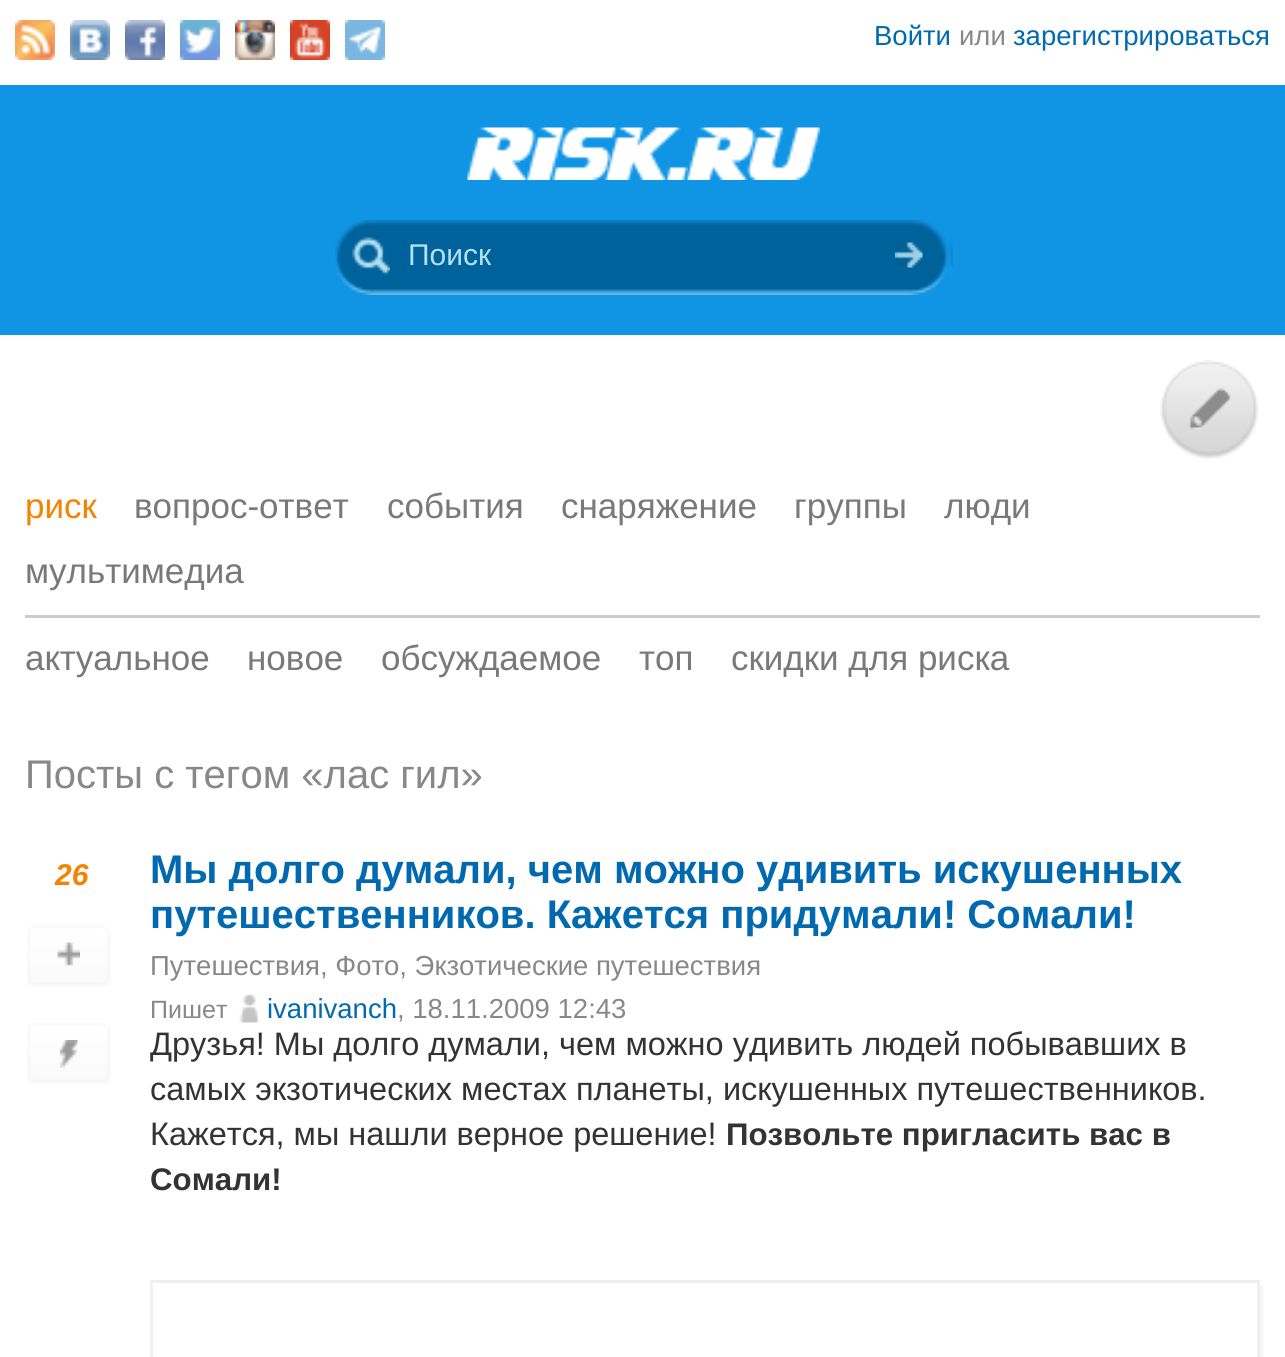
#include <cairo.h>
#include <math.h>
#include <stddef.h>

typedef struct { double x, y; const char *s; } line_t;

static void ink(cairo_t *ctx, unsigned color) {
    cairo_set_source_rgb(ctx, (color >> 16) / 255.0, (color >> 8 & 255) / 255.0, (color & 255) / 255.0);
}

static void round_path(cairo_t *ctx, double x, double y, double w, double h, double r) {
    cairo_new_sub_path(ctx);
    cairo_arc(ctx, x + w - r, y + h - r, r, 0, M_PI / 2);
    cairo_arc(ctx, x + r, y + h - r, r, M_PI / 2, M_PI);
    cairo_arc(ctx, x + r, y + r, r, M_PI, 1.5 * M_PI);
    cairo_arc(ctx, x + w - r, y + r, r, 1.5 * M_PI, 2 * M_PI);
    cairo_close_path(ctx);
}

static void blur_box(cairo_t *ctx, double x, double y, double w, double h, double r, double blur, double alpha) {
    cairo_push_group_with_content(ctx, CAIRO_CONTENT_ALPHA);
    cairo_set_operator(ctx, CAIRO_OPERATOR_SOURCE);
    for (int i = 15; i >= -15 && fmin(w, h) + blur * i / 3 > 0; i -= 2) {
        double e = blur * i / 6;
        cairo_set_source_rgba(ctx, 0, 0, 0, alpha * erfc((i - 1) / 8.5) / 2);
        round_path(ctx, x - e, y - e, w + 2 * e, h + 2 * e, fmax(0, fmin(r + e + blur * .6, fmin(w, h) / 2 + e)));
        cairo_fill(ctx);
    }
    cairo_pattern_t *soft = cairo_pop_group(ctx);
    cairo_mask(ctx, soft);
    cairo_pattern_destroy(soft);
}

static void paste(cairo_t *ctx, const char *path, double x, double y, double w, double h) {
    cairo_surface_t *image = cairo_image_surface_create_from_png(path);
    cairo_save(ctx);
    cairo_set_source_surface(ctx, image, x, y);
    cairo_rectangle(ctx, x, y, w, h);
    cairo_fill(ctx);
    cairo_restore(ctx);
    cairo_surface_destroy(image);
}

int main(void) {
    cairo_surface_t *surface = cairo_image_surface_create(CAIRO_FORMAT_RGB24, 1285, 1357);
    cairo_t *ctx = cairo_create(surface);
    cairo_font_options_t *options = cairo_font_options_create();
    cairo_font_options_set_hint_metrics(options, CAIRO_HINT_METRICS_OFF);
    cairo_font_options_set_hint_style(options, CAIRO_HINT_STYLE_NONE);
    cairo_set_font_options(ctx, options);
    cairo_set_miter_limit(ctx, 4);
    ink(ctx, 0xFFFFFF);
    cairo_paint(ctx);
    paste(ctx, "media/1.png", 15, 20, 40, 40);
    paste(ctx, "media/2.png", 70, 20, 40, 40);
    paste(ctx, "media/3.png", 125, 20, 40, 40);
    paste(ctx, "media/4.png", 180, 20, 40, 40);
    paste(ctx, "media/5.png", 235, 20, 40, 40);
    paste(ctx, "media/6.png", 290, 20, 40, 40);
    paste(ctx, "media/7.png", 345, 20, 40, 40);
    cairo_select_font_face(ctx, "Liberation Sans", CAIRO_FONT_SLANT_NORMAL, CAIRO_FONT_WEIGHT_NORMAL);
    cairo_set_font_size(ctx, 27.5);
    ink(ctx, 0x0069AF);
    cairo_move_to(ctx, 874, 45);
    cairo_show_text(ctx, "Войти");
    ink(ctx, 0x888888);
    cairo_move_to(ctx, 959, 45);
    cairo_show_text(ctx, "или");
    ink(ctx, 0x0069AF);
    cairo_move_to(ctx, 1013, 45);
    cairo_show_text(ctx, "зарегистрироваться");
    ink(ctx, 0x0F95E4);
    cairo_rectangle(ctx, 0, 85, 1285, 250);
    cairo_fill(ctx);
    paste(ctx, "media/8.png", 467, 127, 353, 53);
    paste(ctx, "media/9.png", 335, 220, 618, 75);
    paste(ctx, "media/10.png", 352, 237, 38, 38);
    cairo_save(ctx);
    round_path(ctx, 408, 238, 480, 35, 15);
    cairo_clip(ctx);
    cairo_set_font_size(ctx, 30);
    ink(ctx, 0xB3E1F3);
    cairo_move_to(ctx, 408, 265);
    cairo_show_text(ctx, "Поиск");
    cairo_restore(ctx);
    paste(ctx, "media/11.png", 895, 242, 28, 26);
    paste(ctx, "media/12.png", 1160, 360, 99, 99);
    ink(ctx, 0xCCCCCC);
    cairo_rectangle(ctx, 25, 615, 1235, 3);
    cairo_fill(ctx);
    cairo_set_font_size(ctx, 35);
    ink(ctx, 0xF58200);
    cairo_move_to(ctx, 25, 518);
    cairo_show_text(ctx, "риск");
    ink(ctx, 0x797979);
    {
        static const line_t items[] = {
            {134, 518, "вопрос-ответ"},
            {387, 518, "события"},
            {561, 518, "снаряжение"},
            {794, 518, "группы"},
            {944, 518, "люди"},
            {25, 583, "мультимедиа"},
            {25, 670, "актуальное"},
            {247, 670, "новое"},
            {381, 670, "обсуждаемое"},
            {639, 670, "топ"},
            {731, 670, "скидки для риска"},
        };
        for (size_t i = 0; i < sizeof items / sizeof *items; i++) {
            cairo_move_to(ctx, items[i].x, items[i].y);
            cairo_show_text(ctx, items[i].s);
        }
    }
    cairo_set_font_size(ctx, 40);
    ink(ctx, 0x888888);
    cairo_move_to(ctx, 25, 788);
    cairo_show_text(ctx, "Посты c тегом «лас гил»");
    cairo_select_font_face(ctx, "Liberation Sans", CAIRO_FONT_SLANT_ITALIC, CAIRO_FONT_WEIGHT_BOLD);
    cairo_set_font_size(ctx, 30);
    ink(ctx, 0xF58200);
    cairo_move_to(ctx, 55, 885);
    cairo_show_text(ctx, "26");
    paste(ctx, "media/13.png", 27, 925, 84, 61);
    paste(ctx, "media/14.png", 57, 942, 23, 24);
    paste(ctx, "media/15.png", 27, 1023, 84, 61);
    paste(ctx, "media/16.png", 60, 1040, 18, 28);
    cairo_select_font_face(ctx, "Liberation Sans", CAIRO_FONT_SLANT_NORMAL, CAIRO_FONT_WEIGHT_BOLD);
    cairo_set_font_size(ctx, 40);
    ink(ctx, 0x0069AF);
    cairo_move_to(ctx, 150, 883);
    cairo_show_text(ctx, "Мы долго думали, чем можно удивить искушенных");
    cairo_move_to(ctx, 150, 928);
    cairo_show_text(ctx, "путешественников. Кажется придумали! Сомали!");
    cairo_select_font_face(ctx, "Liberation Sans", CAIRO_FONT_SLANT_NORMAL, CAIRO_FONT_WEIGHT_NORMAL);
    cairo_set_font_size(ctx, 27.5);
    ink(ctx, 0x888888);
    cairo_move_to(ctx, 150, 975);
    cairo_show_text(ctx, "Путешествия, Фото, Экзотические путешествия");
    cairo_set_font_size(ctx, 25);
    cairo_move_to(ctx, 150, 1018);
    cairo_show_text(ctx, "Пишет");
    paste(ctx, "media/17.png", 239, 994, 20, 29);
    cairo_set_font_size(ctx, 27.5);
    ink(ctx, 0x0069AF);
    cairo_move_to(ctx, 267, 1018);
    cairo_show_text(ctx, "ivanivanch");
    ink(ctx, 0x888888);
    cairo_move_to(ctx, 397, 1018);
    cairo_show_text(ctx, ", 18.11.2009 12:43");
    cairo_set_font_size(ctx, 32.5);
    ink(ctx, 0x333333);
    {
        static const line_t items[] = {
            {150, 1055, "Друзья! Мы долго думали, чем можно удивить людей побывавших в"},
            {150, 1100, "самых экзотических местах планеты, искушенных путешественников."},
            {150, 1145, "Кажется, мы нашли верное решение!"},
        };
        for (size_t i = 0; i < sizeof items / sizeof *items; i++) {
            cairo_move_to(ctx, items[i].x, items[i].y);
            cairo_show_text(ctx, items[i].s);
        }
    }
    cairo_select_font_face(ctx, "Liberation Sans", CAIRO_FONT_SLANT_NORMAL, CAIRO_FONT_WEIGHT_BOLD);
    cairo_set_font_size(ctx, 31.25);
    cairo_move_to(ctx, 726, 1145);
    cairo_show_text(ctx, "Позвольте пригласить вас в");
    cairo_move_to(ctx, 150, 1190);
    cairo_show_text(ctx, "Сомали!");
    cairo_save(ctx);
    cairo_rectangle(ctx, 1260, 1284, 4, 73);
    cairo_clip(ctx);
    ink(ctx, 0xC8C8C8);
    blur_box(ctx, 153, 1285, 1110, 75, 0, 1, 0.2);
    cairo_restore(ctx);
    cairo_rectangle(ctx, 151.5, 1281.5, 1107, 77);
    ink(ctx, 0xEFEFEF);
    cairo_set_line_width(ctx, 3);
    cairo_stroke(ctx);
    cairo_surface_write_to_png(surface, "image.png");
    cairo_font_options_destroy(options);
    cairo_destroy(ctx);
    cairo_surface_destroy(surface);
    return 0;
}
